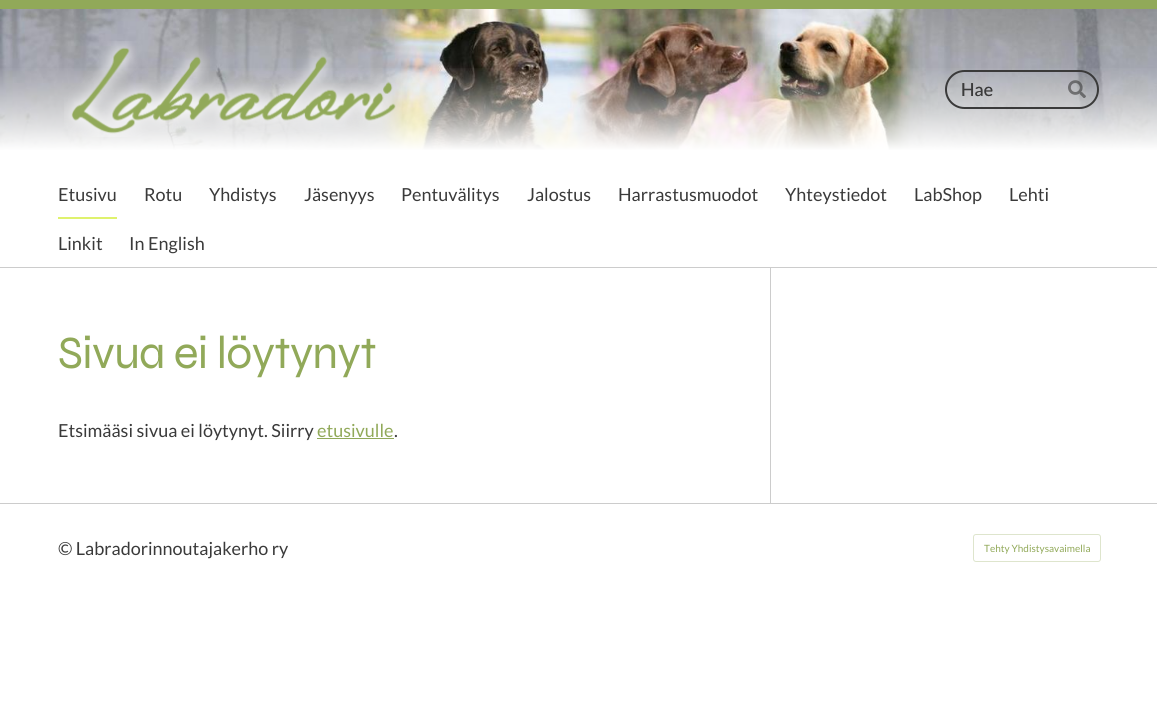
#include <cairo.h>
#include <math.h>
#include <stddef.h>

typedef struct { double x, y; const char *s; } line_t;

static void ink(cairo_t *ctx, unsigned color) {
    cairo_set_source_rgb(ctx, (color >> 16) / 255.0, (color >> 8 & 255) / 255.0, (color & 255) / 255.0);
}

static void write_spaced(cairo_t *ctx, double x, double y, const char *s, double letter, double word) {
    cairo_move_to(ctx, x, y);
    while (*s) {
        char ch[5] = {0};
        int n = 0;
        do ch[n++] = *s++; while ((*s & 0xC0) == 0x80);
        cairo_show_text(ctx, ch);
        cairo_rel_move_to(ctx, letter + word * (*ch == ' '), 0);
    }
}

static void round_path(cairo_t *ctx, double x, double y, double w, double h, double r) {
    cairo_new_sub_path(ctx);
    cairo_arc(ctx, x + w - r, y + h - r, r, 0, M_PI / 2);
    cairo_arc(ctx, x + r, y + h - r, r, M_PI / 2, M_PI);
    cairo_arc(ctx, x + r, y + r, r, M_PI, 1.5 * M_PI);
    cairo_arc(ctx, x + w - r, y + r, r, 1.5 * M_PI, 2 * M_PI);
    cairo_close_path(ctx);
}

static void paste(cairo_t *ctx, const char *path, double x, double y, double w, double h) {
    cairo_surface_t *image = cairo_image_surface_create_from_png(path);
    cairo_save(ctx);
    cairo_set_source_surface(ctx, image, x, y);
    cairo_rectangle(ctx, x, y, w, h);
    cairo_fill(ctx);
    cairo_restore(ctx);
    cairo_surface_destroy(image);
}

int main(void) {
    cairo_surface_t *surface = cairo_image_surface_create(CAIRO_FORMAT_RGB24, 1157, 704);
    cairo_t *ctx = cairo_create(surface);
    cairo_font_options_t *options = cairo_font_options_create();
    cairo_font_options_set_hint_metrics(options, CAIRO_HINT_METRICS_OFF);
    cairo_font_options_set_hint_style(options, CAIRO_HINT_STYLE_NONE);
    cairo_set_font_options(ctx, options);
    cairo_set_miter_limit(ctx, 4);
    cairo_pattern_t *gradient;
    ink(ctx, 0xFFFFFF);
    cairo_paint(ctx);
    ink(ctx, 0x91A959);
    cairo_rectangle(ctx, 0, 0, 1157, 9);
    cairo_fill(ctx);
    paste(ctx, "media/1.png", 0, 9, 1157, 141);
    gradient = cairo_pattern_create_linear(579, 9, 579, 151);
    cairo_pattern_add_color_stop_rgba(gradient, 0.4, 1, 1, 1, 0);
    cairo_pattern_add_color_stop_rgba(gradient, 1, 1, 1, 1, 1);
    cairo_set_source(ctx, gradient);
    cairo_pattern_destroy(gradient);
    cairo_rectangle(ctx, 0, 68, 1157, 82);
    cairo_fill(ctx);
    ink(ctx, 0xCCCCCC);
    cairo_rectangle(ctx, 0, 267, 1157, 1);
    cairo_fill(ctx);
    paste(ctx, "media/2.png", 64, 41, 338, 96);
    round_path(ctx, 946, 71, 152, 37, 18.5);
    ink(ctx, 0x3A3A3A);
    cairo_stroke(ctx);
    cairo_select_font_face(ctx, "Lato", CAIRO_FONT_SLANT_NORMAL, CAIRO_FONT_WEIGHT_NORMAL);
    cairo_set_font_size(ctx, 18);
    cairo_move_to(ctx, 961, 96);
    cairo_show_text(ctx, "Hae");
    paste(ctx, "media/3.png", 1068, 80, 18, 18);
    cairo_move_to(ctx, 58, 201);
    cairo_show_text(ctx, "Etusivu");
    ink(ctx, 0xDFF26D);
    cairo_rectangle(ctx, 58, 217, 59, 2);
    cairo_fill(ctx);
    ink(ctx, 0x3A3A3A);
    {
        static const line_t items[] = {
            {144, 201, "Rotu"},
            {209, 201, "Yhdistys"},
            {304, 201, "Jäsenyys"},
            {401, 201, "Pentuvälitys"},
            {527, 201, "Jalostus"},
            {618, 201, "Harrastusmuodot"},
            {785, 201, "Yhteystiedot"},
            {914, 201, "LabShop"},
            {1009, 201, "Lehti"},
            {58, 250, "Linkit"},
            {129, 250, "In English"},
        };
        for (size_t i = 0; i < sizeof items / sizeof *items; i++) {
            cairo_move_to(ctx, items[i].x, items[i].y);
            cairo_show_text(ctx, items[i].s);
        }
    }
    ink(ctx, 0xCCCCCC);
    cairo_rectangle(ctx, 770, 268, 1, 235);
    cairo_fill(ctx);
    cairo_select_font_face(ctx, "Syne", CAIRO_FONT_SLANT_NORMAL, CAIRO_FONT_WEIGHT_NORMAL);
    cairo_set_font_size(ctx, 46.25);
    ink(ctx, 0x91A959);
    write_spaced(ctx, 58, 368, "Sivua ei löytynyt", -0.7, 0);
    cairo_select_font_face(ctx, "Lato", CAIRO_FONT_SLANT_NORMAL, CAIRO_FONT_WEIGHT_NORMAL);
    cairo_set_font_size(ctx, 18);
    ink(ctx, 0x3A3A3A);
    cairo_move_to(ctx, 58, 437);
    cairo_show_text(ctx, "Etsimääsi sivua ei löytynyt. Siirry");
    ink(ctx, 0x91A959);
    cairo_move_to(ctx, 317, 437);
    cairo_show_text(ctx, "etusivulle");
    cairo_rectangle(ctx, 317, 438, 77, 1);
    cairo_fill(ctx);
    ink(ctx, 0x3A3A3A);
    cairo_move_to(ctx, 394, 437);
    cairo_show_text(ctx, ".");
    ink(ctx, 0xCCCCCC);
    cairo_rectangle(ctx, 0, 503, 1157, 1);
    cairo_fill(ctx);
    ink(ctx, 0x3A3A3A);
    cairo_move_to(ctx, 58, 555);
    cairo_show_text(ctx, "© Labradorinnoutajakerho ry");
    round_path(ctx, 973.5, 534.5, 127, 27, 2.5);
    ink(ctx, 0xDEE5CD);
    cairo_set_line_width(ctx, 1);
    cairo_stroke(ctx);
    cairo_set_font_size(ctx, 10);
    ink(ctx, 0x91A959);
    cairo_move_to(ctx, 984, 552);
    cairo_show_text(ctx, "Tehty Yhdistysavaimella");
    cairo_surface_write_to_png(surface, "image.png");
    cairo_font_options_destroy(options);
    cairo_destroy(ctx);
    cairo_surface_destroy(surface);
    return 0;
}
